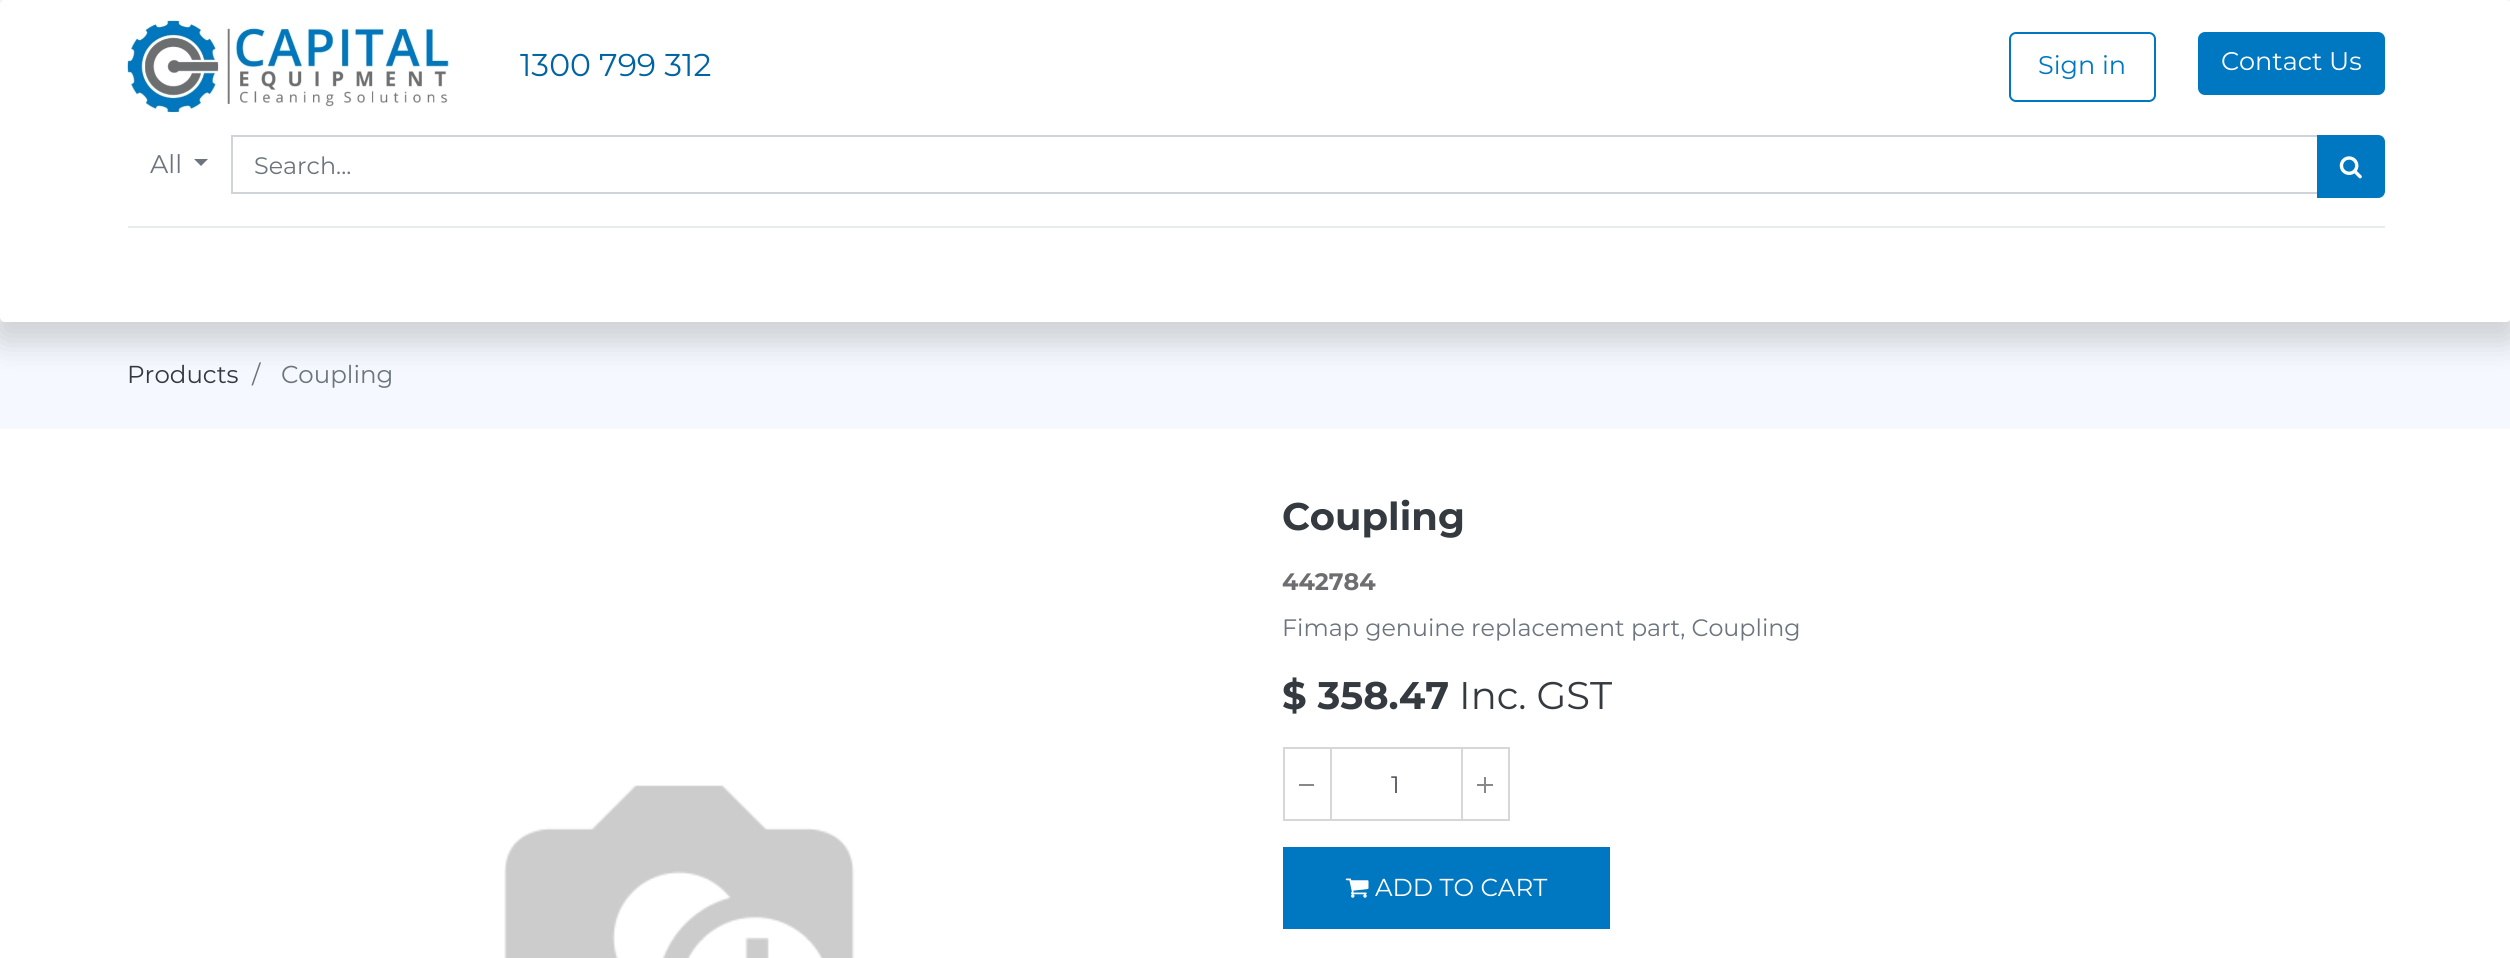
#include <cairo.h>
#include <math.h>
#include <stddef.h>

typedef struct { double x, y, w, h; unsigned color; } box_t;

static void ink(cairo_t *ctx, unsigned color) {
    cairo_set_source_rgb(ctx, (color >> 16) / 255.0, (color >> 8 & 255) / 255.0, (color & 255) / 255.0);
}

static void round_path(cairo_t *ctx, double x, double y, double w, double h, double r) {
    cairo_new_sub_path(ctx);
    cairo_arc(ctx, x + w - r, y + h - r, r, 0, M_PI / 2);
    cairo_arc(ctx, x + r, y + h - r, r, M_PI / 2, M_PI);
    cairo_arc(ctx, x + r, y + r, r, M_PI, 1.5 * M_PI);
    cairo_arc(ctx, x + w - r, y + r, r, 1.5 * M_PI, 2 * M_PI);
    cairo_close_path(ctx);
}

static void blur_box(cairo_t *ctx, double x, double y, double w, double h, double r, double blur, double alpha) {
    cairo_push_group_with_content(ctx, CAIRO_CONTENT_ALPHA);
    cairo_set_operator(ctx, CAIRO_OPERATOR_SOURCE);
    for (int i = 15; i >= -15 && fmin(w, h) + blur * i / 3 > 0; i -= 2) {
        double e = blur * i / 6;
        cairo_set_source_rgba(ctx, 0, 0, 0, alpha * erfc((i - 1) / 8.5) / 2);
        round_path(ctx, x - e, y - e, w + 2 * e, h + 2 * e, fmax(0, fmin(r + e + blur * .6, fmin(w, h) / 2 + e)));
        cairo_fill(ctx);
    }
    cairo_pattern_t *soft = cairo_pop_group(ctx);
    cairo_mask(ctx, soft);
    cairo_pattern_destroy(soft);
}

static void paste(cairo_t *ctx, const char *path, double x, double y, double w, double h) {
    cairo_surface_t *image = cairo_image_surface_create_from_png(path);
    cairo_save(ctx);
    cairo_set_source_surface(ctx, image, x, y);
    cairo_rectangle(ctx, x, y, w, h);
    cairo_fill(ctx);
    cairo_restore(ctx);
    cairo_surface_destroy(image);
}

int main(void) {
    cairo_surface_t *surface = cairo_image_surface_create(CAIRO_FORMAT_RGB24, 2510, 958);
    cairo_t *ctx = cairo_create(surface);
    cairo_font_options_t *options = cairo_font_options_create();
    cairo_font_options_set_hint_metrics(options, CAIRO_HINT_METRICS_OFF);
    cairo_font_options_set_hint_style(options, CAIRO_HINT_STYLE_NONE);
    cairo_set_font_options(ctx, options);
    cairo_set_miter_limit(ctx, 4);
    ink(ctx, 0xFFFFFF);
    cairo_paint(ctx);
    ink(ctx, 0xF5F9FF);
    cairo_rectangle(ctx, 0, 322, 2510, 107);
    cairo_fill(ctx);
    ink(ctx, 0x000000);
    blur_box(ctx, -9, 5, 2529, 340, 14, 14, 0.15);
    ink(ctx, 0xFFFFFF);
    round_path(ctx, 0, 0, 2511, 322, 5);
    cairo_fill(ctx);
    paste(ctx, "media/1.png", 127, 20, 323, 93);
    cairo_select_font_face(ctx, "Montserrat", CAIRO_FONT_SLANT_NORMAL, CAIRO_FONT_WEIGHT_NORMAL);
    cairo_set_font_size(ctx, 31.5);
    ink(ctx, 0x0064A2);
    cairo_move_to(ctx, 520, 76);
    cairo_show_text(ctx, "1300 799 312");
    round_path(ctx, 2010, 33, 145, 68, 6);
    ink(ctx, 0x0077C1);
    cairo_stroke(ctx);
    cairo_set_font_size(ctx, 25.5);
    cairo_move_to(ctx, 2038, 74);
    cairo_show_text(ctx, "Sign in");
    round_path(ctx, 2199, 33, 185, 61, 6);
    cairo_fill_preserve(ctx);
    cairo_stroke(ctx);
    ink(ctx, 0xFFFFFF);
    cairo_move_to(ctx, 2221, 70);
    cairo_show_text(ctx, "Contact Us");
    ink(ctx, 0x6C757D);
    cairo_move_to(ctx, 150, 173);
    cairo_show_text(ctx, "All");
    cairo_new_path(ctx);
    cairo_move_to(ctx, 194, 159);
    cairo_line_to(ctx, 208, 159);
    cairo_line_to(ctx, 201, 166);
    cairo_close_path(ctx);
    cairo_fill(ctx);
    cairo_rectangle(ctx, 232, 136, 2086, 57);
    ink(ctx, 0xCED4DA);
    cairo_stroke(ctx);
    cairo_set_font_size(ctx, 23.8);
    ink(ctx, 0x6C757D);
    cairo_move_to(ctx, 254, 174);
    cairo_show_text(ctx, "Search...");
    ink(ctx, 0x0077C1);
    cairo_new_path(ctx);
    cairo_move_to(ctx, 2318, 136);
    cairo_line_to(ctx, 2378, 136);
    cairo_curve_to(ctx, 2381.5, 136, 2384, 138.5, 2384, 142);
    cairo_line_to(ctx, 2384, 191);
    cairo_curve_to(ctx, 2384, 194.5, 2381.5, 197, 2378, 197);
    cairo_line_to(ctx, 2318, 197);
    cairo_close_path(ctx);
    cairo_fill_preserve(ctx);
    cairo_stroke(ctx);
    paste(ctx, "media/2.png", 2339, 156, 23, 23);
    ink(ctx, 0xE9ECEF);
    cairo_rectangle(ctx, 128, 226, 2257, 2);
    cairo_fill(ctx);
    cairo_set_font_size(ctx, 24.5);
    ink(ctx, 0x343A40);
    cairo_move_to(ctx, 127, 383);
    cairo_show_text(ctx, "Products");
    ink(ctx, 0x6C757D);
    cairo_move_to(ctx, 252, 383);
    cairo_show_text(ctx, "/");
    cairo_move_to(ctx, 281, 383);
    cairo_show_text(ctx, "Coupling");
    paste(ctx, "media/3.png", 504, 785, 351, 173);
    cairo_select_font_face(ctx, "Montserrat", CAIRO_FONT_SLANT_NORMAL, CAIRO_FONT_WEIGHT_BOLD);
    cairo_set_font_size(ctx, 38.5);
    ink(ctx, 0x343A40);
    cairo_move_to(ctx, 1282, 530);
    cairo_show_text(ctx, "Coupling");
    cairo_set_font_size(ctx, 23.8);
    ink(ctx, 0x6D6E71);
    cairo_move_to(ctx, 1282, 590);
    cairo_show_text(ctx, "442784");
    cairo_select_font_face(ctx, "Montserrat", CAIRO_FONT_SLANT_NORMAL, CAIRO_FONT_WEIGHT_NORMAL);
    ink(ctx, 0x6C757D);
    cairo_move_to(ctx, 1282, 636);
    cairo_show_text(ctx, "Fimap genuine replacement part, Coupling");
    cairo_select_font_face(ctx, "Montserrat", CAIRO_FONT_SLANT_NORMAL, CAIRO_FONT_WEIGHT_BOLD);
    cairo_set_font_size(ctx, 38.5);
    ink(ctx, 0x343A40);
    cairo_move_to(ctx, 1282, 709);
    cairo_show_text(ctx, "$ 358.47");
    cairo_select_font_face(ctx, "Montserrat", CAIRO_FONT_SLANT_NORMAL, CAIRO_FONT_WEIGHT_NORMAL);
    cairo_move_to(ctx, 1459, 709);
    cairo_show_text(ctx, "Inc. GST");
    cairo_rectangle(ctx, 1284, 748, 225, 72);
    ink(ctx, 0xD7D7D7);
    cairo_stroke(ctx);
    cairo_rectangle(ctx, 1330, 749, 2, 70);
    cairo_fill(ctx);
    ink(ctx, 0x888888);
    cairo_rectangle(ctx, 1299, 784, 15, 2);
    cairo_fill(ctx);
    cairo_set_font_size(ctx, 23.8);
    ink(ctx, 0x495057);
    cairo_move_to(ctx, 1391, 793);
    cairo_show_text(ctx, "1");
    {
        static const box_t items[] = {
            {1461, 749, 2, 70, 0xD7D7D7},
            {1477, 784, 16, 2, 0x888888},
            {1484, 777, 2, 16, 0x888888},
            {1283, 847, 327, 82, 0x0077C1},
        };
        for (size_t i = 0; i < sizeof items / sizeof *items; i++) {
            ink(ctx, items[i].color);
            cairo_rectangle(ctx, items[i].x, items[i].y, items[i].w, items[i].h);
            cairo_fill(ctx);
        }
    }
    paste(ctx, "media/4.png", 1345, 878, 24, 20);
    cairo_set_font_size(ctx, 24.5);
    ink(ctx, 0xFFFFFF);
    cairo_move_to(ctx, 1375, 896);
    cairo_show_text(ctx, "ADD TO CART");
    cairo_surface_write_to_png(surface, "image.png");
    cairo_font_options_destroy(options);
    cairo_destroy(ctx);
    cairo_surface_destroy(surface);
    return 0;
}
